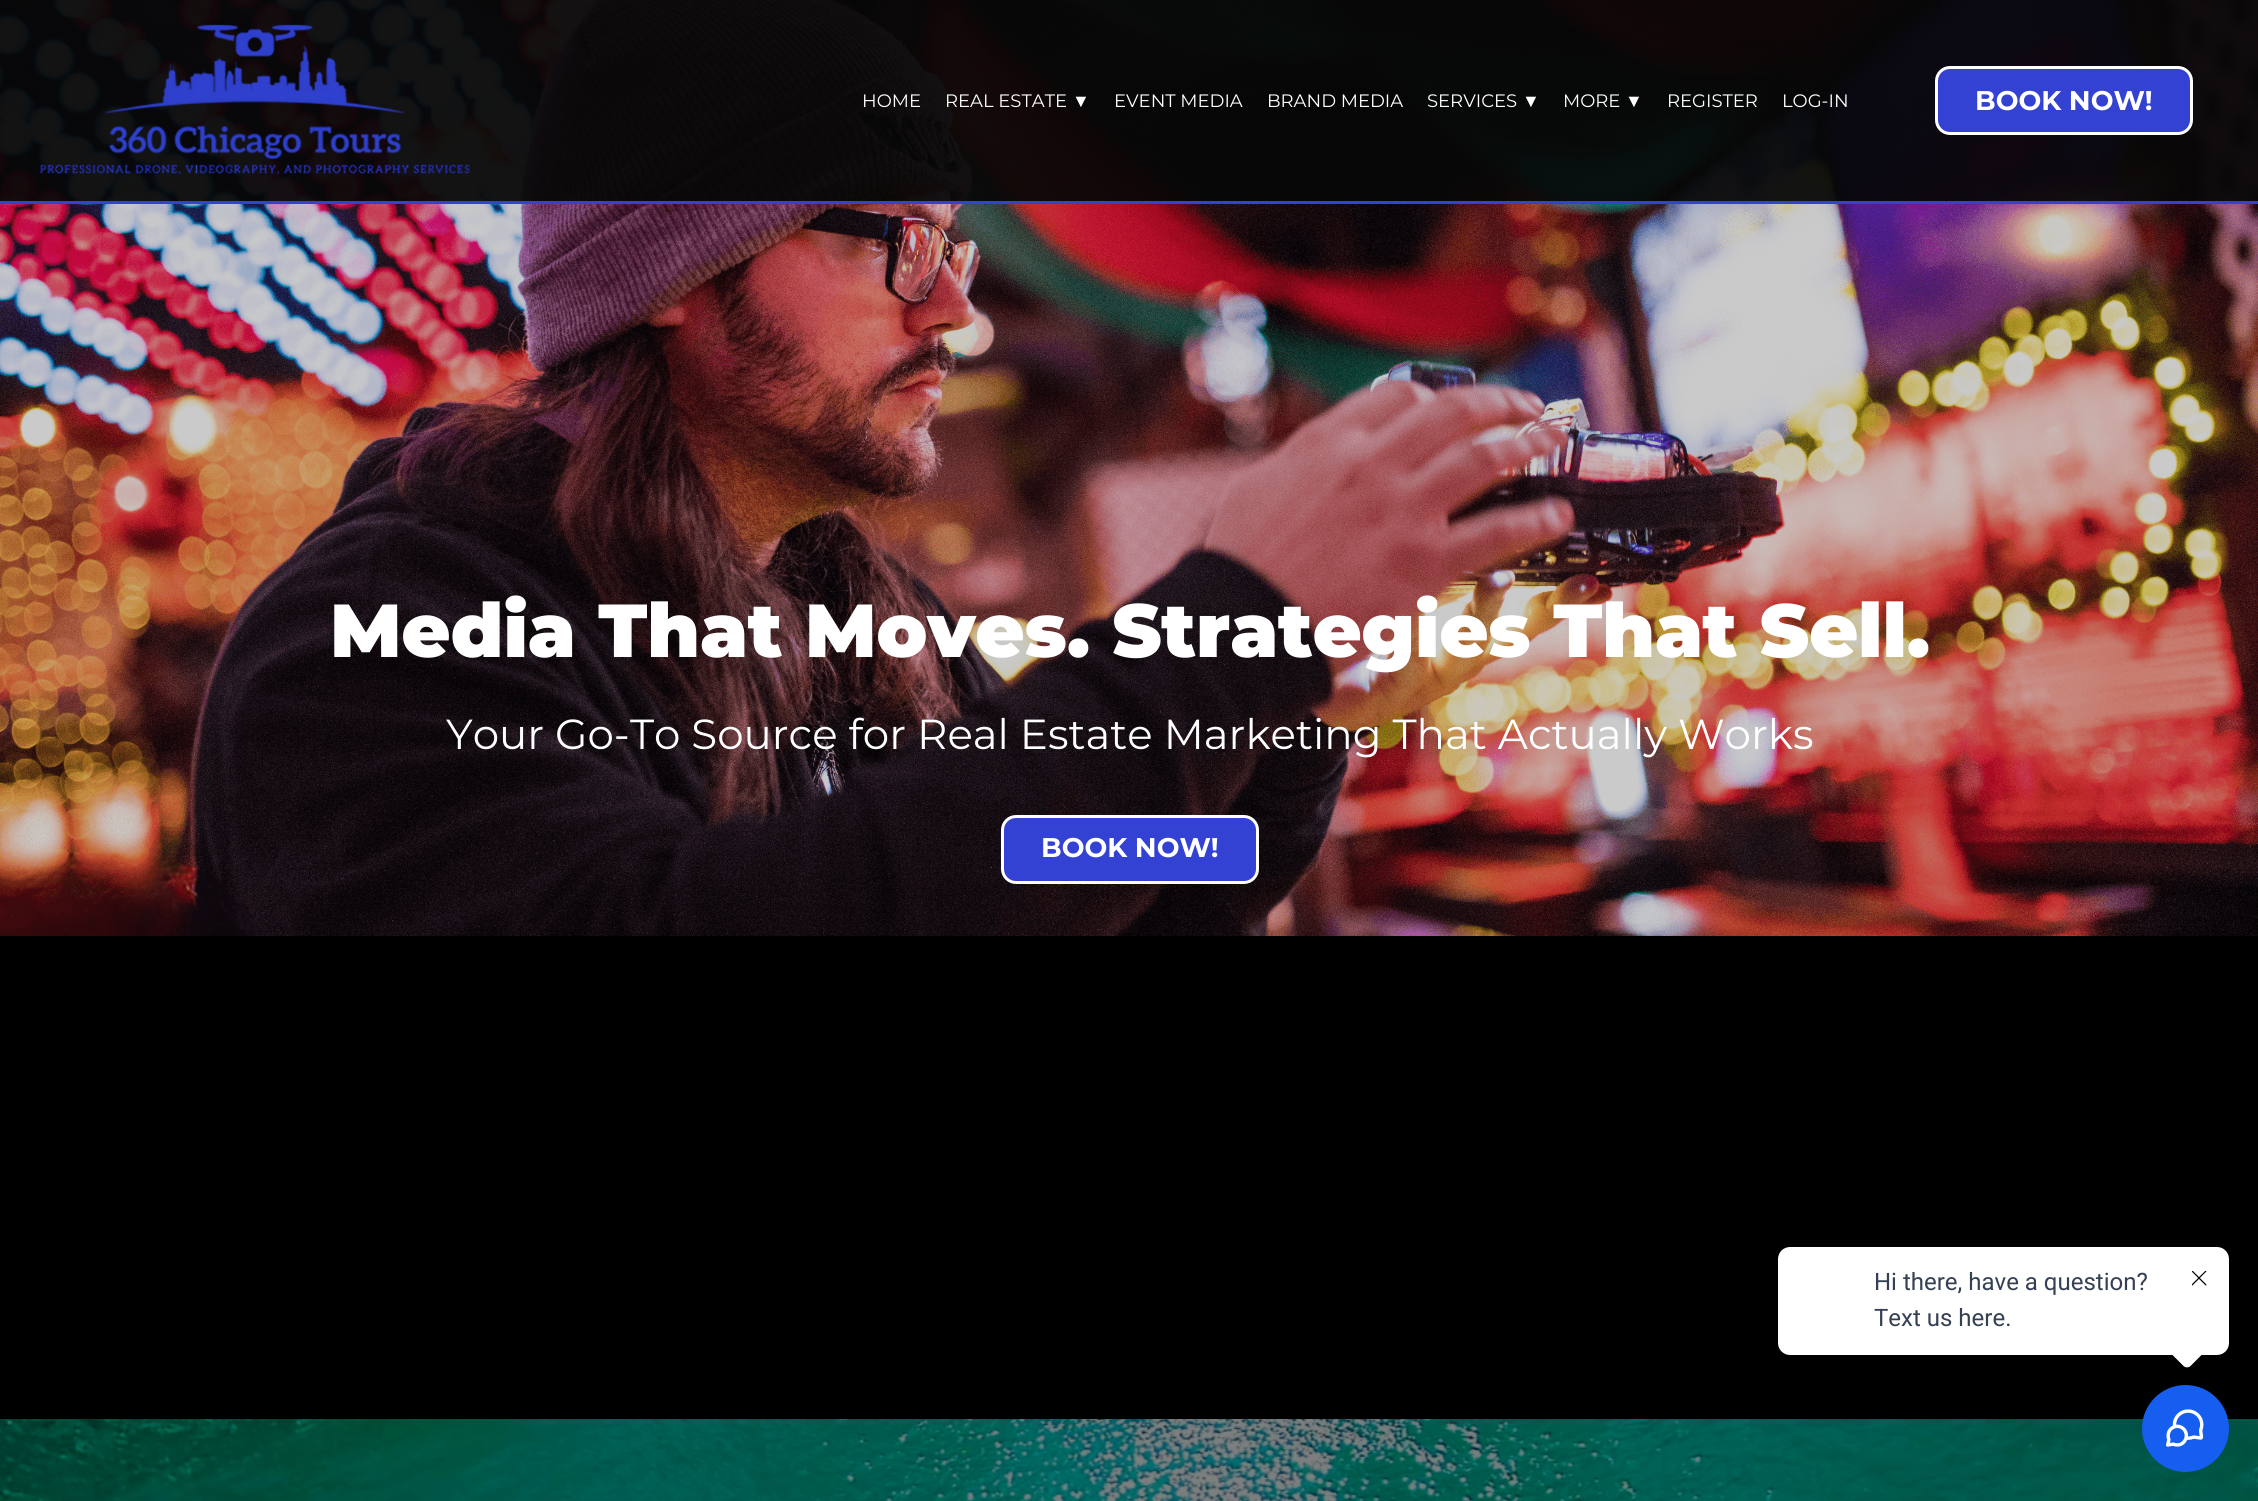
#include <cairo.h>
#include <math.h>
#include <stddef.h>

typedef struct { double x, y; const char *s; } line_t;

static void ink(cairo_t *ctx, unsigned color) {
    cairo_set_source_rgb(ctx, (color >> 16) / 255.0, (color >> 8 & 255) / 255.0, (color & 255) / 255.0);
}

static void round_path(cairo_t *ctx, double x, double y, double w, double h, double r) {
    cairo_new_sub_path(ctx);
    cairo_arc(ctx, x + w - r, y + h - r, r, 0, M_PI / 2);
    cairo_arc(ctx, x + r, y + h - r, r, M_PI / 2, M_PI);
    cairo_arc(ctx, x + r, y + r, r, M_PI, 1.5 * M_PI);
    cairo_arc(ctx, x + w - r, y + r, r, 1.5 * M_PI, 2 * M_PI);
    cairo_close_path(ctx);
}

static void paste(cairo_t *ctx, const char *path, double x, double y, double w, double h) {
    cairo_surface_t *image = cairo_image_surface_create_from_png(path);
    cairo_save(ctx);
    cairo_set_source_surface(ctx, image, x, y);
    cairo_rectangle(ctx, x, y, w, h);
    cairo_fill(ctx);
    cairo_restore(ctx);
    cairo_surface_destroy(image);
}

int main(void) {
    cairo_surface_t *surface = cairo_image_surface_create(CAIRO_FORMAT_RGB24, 2258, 1501);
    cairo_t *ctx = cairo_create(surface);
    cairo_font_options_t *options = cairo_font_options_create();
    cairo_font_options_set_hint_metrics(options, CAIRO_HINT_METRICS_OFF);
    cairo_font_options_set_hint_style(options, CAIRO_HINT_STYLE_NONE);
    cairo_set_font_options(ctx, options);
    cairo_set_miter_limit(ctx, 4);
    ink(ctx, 0x000000);
    cairo_paint(ctx);
    paste(ctx, "media/2.png", 0, 0, 2258, 936);
    cairo_set_source_rgba(ctx, 1, 1, 1, 0.25);
    cairo_rectangle(ctx, 0, 0, 2258, 201);
    cairo_fill(ctx);
    cairo_set_source_rgba(ctx, 0, 0, 0, 0.91);
    cairo_rectangle(ctx, 0, 0, 2258, 201);
    cairo_fill(ctx);
    ink(ctx, 0x3342D2);
    cairo_rectangle(ctx, 0, 201, 2258, 3);
    cairo_fill(ctx);
    paste(ctx, "media/1.png", 40, 24, 430, 151);
    cairo_select_font_face(ctx, "Montserrat", CAIRO_FONT_SLANT_NORMAL, CAIRO_FONT_WEIGHT_NORMAL);
    cairo_set_font_size(ctx, 18);
    ink(ctx, 0xFFFFFF);
    cairo_move_to(ctx, 862, 107);
    cairo_show_text(ctx, "HOME");
    cairo_move_to(ctx, 945, 107);
    cairo_show_text(ctx, "REAL ESTATE");
    cairo_select_font_face(ctx, "Liberation Serif", CAIRO_FONT_SLANT_NORMAL, CAIRO_FONT_WEIGHT_NORMAL);
    cairo_move_to(ctx, 1072, 107);
    cairo_show_text(ctx, "▼");
    cairo_select_font_face(ctx, "Montserrat", CAIRO_FONT_SLANT_NORMAL, CAIRO_FONT_WEIGHT_NORMAL);
    {
        static const line_t items[] = {
            {1114, 107, "EVENT MEDIA"},
            {1267, 107, "BRAND MEDIA"},
            {1427, 107, "SERVICES"},
        };
        for (size_t i = 0; i < sizeof items / sizeof *items; i++) {
            cairo_move_to(ctx, items[i].x, items[i].y);
            cairo_show_text(ctx, items[i].s);
        }
    }
    cairo_select_font_face(ctx, "Liberation Serif", CAIRO_FONT_SLANT_NORMAL, CAIRO_FONT_WEIGHT_NORMAL);
    cairo_move_to(ctx, 1522, 107);
    cairo_show_text(ctx, "▼");
    cairo_select_font_face(ctx, "Montserrat", CAIRO_FONT_SLANT_NORMAL, CAIRO_FONT_WEIGHT_NORMAL);
    cairo_move_to(ctx, 1563, 107);
    cairo_show_text(ctx, "MORE");
    cairo_select_font_face(ctx, "Liberation Serif", CAIRO_FONT_SLANT_NORMAL, CAIRO_FONT_WEIGHT_NORMAL);
    cairo_move_to(ctx, 1625, 107);
    cairo_show_text(ctx, "▼");
    cairo_select_font_face(ctx, "Montserrat", CAIRO_FONT_SLANT_NORMAL, CAIRO_FONT_WEIGHT_NORMAL);
    cairo_move_to(ctx, 1667, 107);
    cairo_show_text(ctx, "REGISTER");
    cairo_move_to(ctx, 1782, 107);
    cairo_show_text(ctx, "LOG-IN");
    ink(ctx, 0x3342D2);
    round_path(ctx, 1936.5, 67.5, 255, 66, 13.5);
    cairo_fill_preserve(ctx);
    ink(ctx, 0xFFFFFF);
    cairo_set_line_width(ctx, 3);
    cairo_stroke(ctx);
    cairo_select_font_face(ctx, "Montserrat", CAIRO_FONT_SLANT_NORMAL, CAIRO_FONT_WEIGHT_BOLD);
    cairo_set_font_size(ctx, 27);
    cairo_move_to(ctx, 1975, 110);
    cairo_show_text(ctx, "BOOK NOW!");
    cairo_select_font_face(ctx, "Montserrat Black", CAIRO_FONT_SLANT_NORMAL, CAIRO_FONT_WEIGHT_NORMAL);
    cairo_set_font_size(ctx, 75);
    cairo_move_to(ctx, 330, 657);
    cairo_show_text(ctx, "Media That Moves. Strategies That Sell.");
    cairo_select_font_face(ctx, "Montserrat", CAIRO_FONT_SLANT_NORMAL, CAIRO_FONT_WEIGHT_NORMAL);
    cairo_set_font_size(ctx, 42);
    cairo_move_to(ctx, 446, 749);
    cairo_show_text(ctx, "Your Go-To Source for Real Estate Marketing That Actually Works");
    ink(ctx, 0x3342D2);
    round_path(ctx, 1002.5, 816.5, 255, 66, 13.5);
    cairo_fill_preserve(ctx);
    ink(ctx, 0xFFFFFF);
    cairo_stroke(ctx);
    cairo_select_font_face(ctx, "Montserrat", CAIRO_FONT_SLANT_NORMAL, CAIRO_FONT_WEIGHT_BOLD);
    cairo_set_font_size(ctx, 27);
    cairo_move_to(ctx, 1041, 857);
    cairo_show_text(ctx, "BOOK NOW!");
    round_path(ctx, 1778, 1247, 451, 108, 12);
    cairo_fill(ctx);
    cairo_select_font_face(ctx, "Roboto", CAIRO_FONT_SLANT_NORMAL, CAIRO_FONT_WEIGHT_NORMAL);
    cairo_set_font_size(ctx, 24);
    ink(ctx, 0x344054);
    cairo_move_to(ctx, 1874, 1290);
    cairo_show_text(ctx, "Hi there, have a question?");
    cairo_move_to(ctx, 1874, 1326);
    cairo_show_text(ctx, "Text us here.");
    ink(ctx, 0xFFFFFF);
    cairo_new_path(ctx);
    cairo_move_to(ctx, 2191, 1331.5);
    cairo_line_to(ctx, 2204, 1344.5);
    cairo_curve_to(ctx, 2206.5, 1346.5, 2206.5, 1350.5, 2204, 1352.5);
    cairo_line_to(ctx, 2191, 1365.5);
    cairo_curve_to(ctx, 2189, 1368, 2185, 1368, 2183, 1365.5);
    cairo_line_to(ctx, 2170, 1352.5);
    cairo_curve_to(ctx, 2167.5, 1350.5, 2167.5, 1346.5, 2170, 1344.5);
    cairo_line_to(ctx, 2183, 1331.5);
    cairo_curve_to(ctx, 2185, 1329, 2189, 1329, 2191, 1331.5);
    cairo_close_path(ctx);
    cairo_fill(ctx);
    paste(ctx, "media/3.png", 2192, 1271, 15, 15);
    paste(ctx, "media/5.png", 0, 1419, 2258, 82);
    ink(ctx, 0x155EEF);
    cairo_arc(ctx, 2185.5, 1428.5, 43.5, 0, 2 * M_PI);
    cairo_fill(ctx);
    paste(ctx, "media/4.png", 2166, 1409, 38, 38);
    cairo_surface_write_to_png(surface, "image.png");
    cairo_font_options_destroy(options);
    cairo_destroy(ctx);
    cairo_surface_destroy(surface);
    return 0;
}
